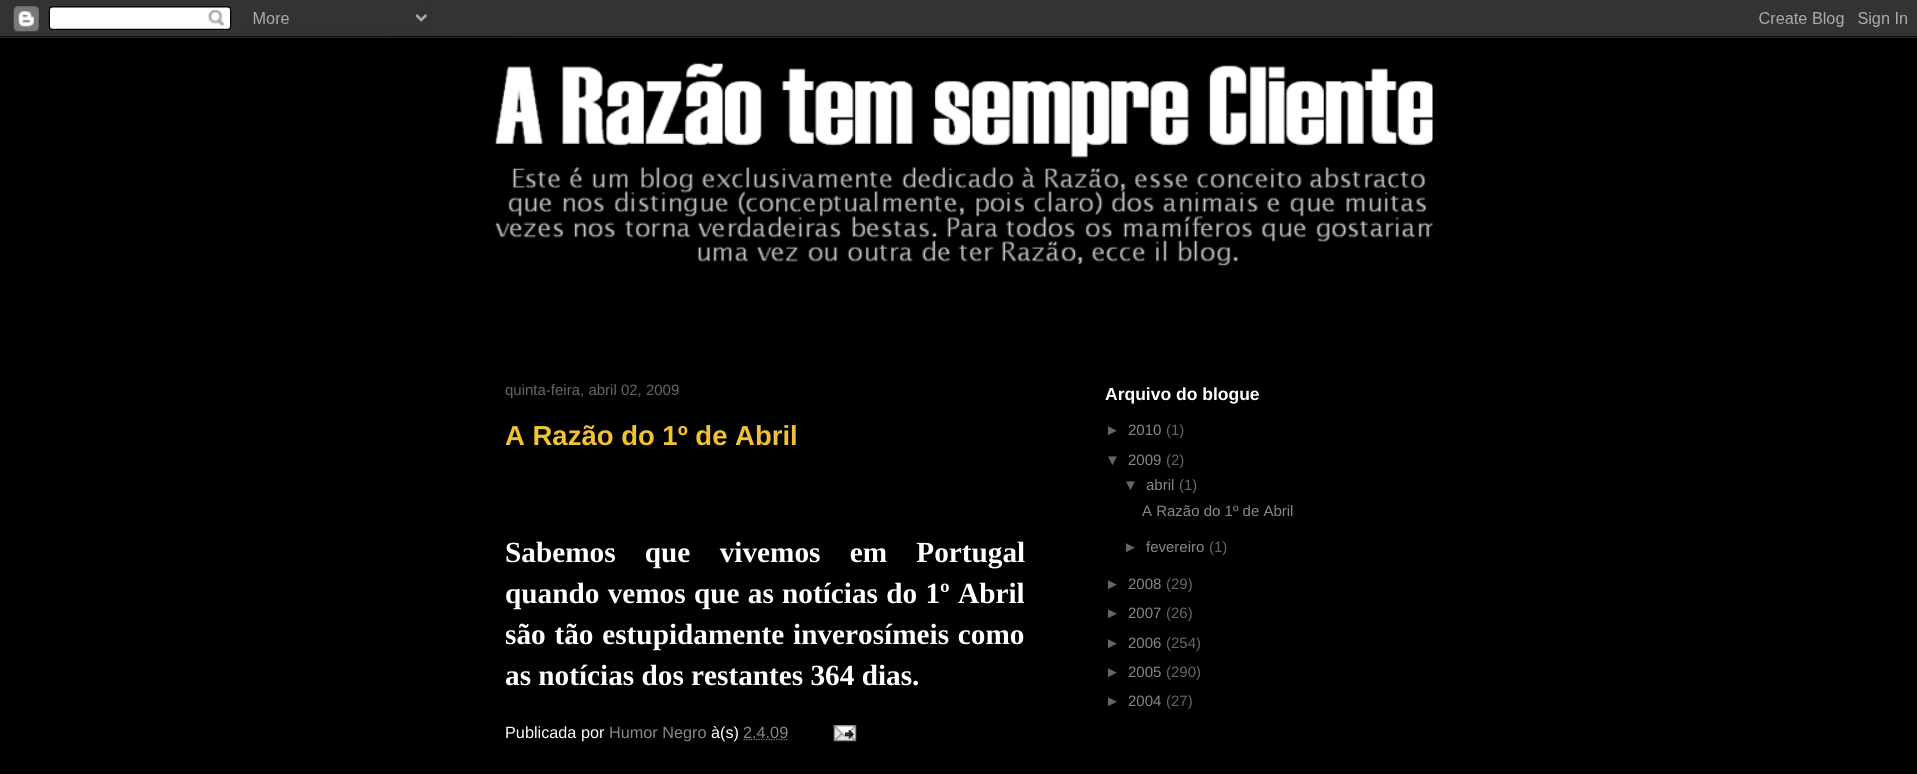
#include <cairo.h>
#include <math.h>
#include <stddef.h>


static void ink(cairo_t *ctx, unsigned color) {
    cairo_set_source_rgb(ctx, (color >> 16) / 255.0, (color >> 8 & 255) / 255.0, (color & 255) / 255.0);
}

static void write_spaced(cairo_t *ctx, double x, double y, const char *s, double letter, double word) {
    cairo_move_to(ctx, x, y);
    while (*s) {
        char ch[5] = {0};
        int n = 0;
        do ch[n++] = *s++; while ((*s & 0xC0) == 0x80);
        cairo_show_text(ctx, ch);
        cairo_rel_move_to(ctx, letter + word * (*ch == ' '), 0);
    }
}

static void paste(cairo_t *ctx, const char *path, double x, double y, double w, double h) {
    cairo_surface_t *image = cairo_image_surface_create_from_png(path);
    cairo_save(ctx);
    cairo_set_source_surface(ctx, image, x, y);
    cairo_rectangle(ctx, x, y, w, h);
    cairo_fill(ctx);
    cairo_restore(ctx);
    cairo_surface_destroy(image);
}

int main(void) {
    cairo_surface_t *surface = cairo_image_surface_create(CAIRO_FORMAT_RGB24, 1917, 774);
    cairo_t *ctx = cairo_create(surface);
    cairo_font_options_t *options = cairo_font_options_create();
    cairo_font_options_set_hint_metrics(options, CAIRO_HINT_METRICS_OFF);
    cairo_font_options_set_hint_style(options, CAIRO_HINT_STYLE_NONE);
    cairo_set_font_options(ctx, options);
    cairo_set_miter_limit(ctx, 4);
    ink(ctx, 0x000000);
    cairo_paint(ctx);
    paste(ctx, "media/1.png", 0, 0, 1917, 38);
    paste(ctx, "media/2.png", 495, 62, 938, 204);
    cairo_select_font_face(ctx, "Liberation Sans", CAIRO_FONT_SLANT_NORMAL, CAIRO_FONT_WEIGHT_NORMAL);
    cairo_set_font_size(ctx, 15);
    ink(ctx, 0x666666);
    cairo_move_to(ctx, 505, 395);
    cairo_show_text(ctx, "quinta-feira, abril 02, 2009");
    cairo_select_font_face(ctx, "Liberation Sans", CAIRO_FONT_SLANT_NORMAL, CAIRO_FONT_WEIGHT_BOLD);
    cairo_set_font_size(ctx, 27.5);
    ink(ctx, 0xF1C232);
    cairo_move_to(ctx, 505, 445);
    cairo_show_text(ctx, "A Razão do 1º de Abril");
    cairo_select_font_face(ctx, "Liberation Serif", CAIRO_FONT_SLANT_NORMAL, CAIRO_FONT_WEIGHT_BOLD);
    cairo_set_font_size(ctx, 29.25);
    ink(ctx, 0xFFFFFF);
    write_spaced(ctx, 505, 562, "Sabemos que vivemos em Portugal", 0, 22);
    write_spaced(ctx, 505, 603, "quando vemos que as notícias do 1º Abril", 0, 1);
    write_spaced(ctx, 505, 644, "são tão estupidamente inverosímeis como", 0, 1.5);
    cairo_move_to(ctx, 505, 685);
    cairo_show_text(ctx, "as notícias dos restantes 364 dias.");
    cairo_select_font_face(ctx, "Liberation Sans", CAIRO_FONT_SLANT_NORMAL, CAIRO_FONT_WEIGHT_NORMAL);
    cairo_set_font_size(ctx, 16.25);
    cairo_move_to(ctx, 505, 738);
    cairo_show_text(ctx, "Publicada por");
    ink(ctx, 0x888888);
    cairo_move_to(ctx, 609, 738);
    cairo_show_text(ctx, "Humor Negro");
    ink(ctx, 0xFFFFFF);
    cairo_move_to(ctx, 711, 738);
    cairo_show_text(ctx, "à(s)");
    cairo_new_path(ctx);
    cairo_move_to(ctx, 743.5, 739.5);
    cairo_line_to(ctx, 788.5, 739.5);
    ink(ctx, 0x888888);
    cairo_set_line_width(ctx, 1.2);
    cairo_set_dash(ctx, (double[]){1.25, 1.25}, 2, 0);
    cairo_stroke(ctx);
    cairo_move_to(ctx, 743, 738);
    cairo_show_text(ctx, "2.4.09");
    paste(ctx, "media/3.png", 833, 725, 24, 17);
    cairo_select_font_face(ctx, "Liberation Sans", CAIRO_FONT_SLANT_NORMAL, CAIRO_FONT_WEIGHT_BOLD);
    cairo_set_font_size(ctx, 17.5);
    ink(ctx, 0xFFFFFF);
    cairo_move_to(ctx, 1105, 400);
    cairo_show_text(ctx, "Arquivo do blogue");
    cairo_select_font_face(ctx, "Liberation Sans", CAIRO_FONT_SLANT_NORMAL, CAIRO_FONT_WEIGHT_NORMAL);
    cairo_set_font_size(ctx, 15);
    ink(ctx, 0x666666);
    cairo_move_to(ctx, 1105, 435);
    cairo_show_text(ctx, "►");
    ink(ctx, 0x888888);
    cairo_move_to(ctx, 1128, 435);
    cairo_show_text(ctx, "2010");
    ink(ctx, 0x666666);
    cairo_move_to(ctx, 1166, 435);
    cairo_show_text(ctx, "(1)");
    cairo_move_to(ctx, 1105, 465);
    cairo_show_text(ctx, "▼");
    ink(ctx, 0x888888);
    cairo_move_to(ctx, 1128, 465);
    cairo_show_text(ctx, "2009");
    ink(ctx, 0x666666);
    cairo_move_to(ctx, 1166, 465);
    cairo_show_text(ctx, "(2)");
    cairo_move_to(ctx, 1123, 490);
    cairo_show_text(ctx, "▼");
    ink(ctx, 0x888888);
    cairo_move_to(ctx, 1146, 490);
    cairo_show_text(ctx, "abril");
    ink(ctx, 0x666666);
    cairo_move_to(ctx, 1179, 490);
    cairo_show_text(ctx, "(1)");
    ink(ctx, 0x888888);
    cairo_move_to(ctx, 1142, 516);
    cairo_show_text(ctx, "A Razão do 1º de Abril");
    ink(ctx, 0x666666);
    cairo_move_to(ctx, 1123, 552);
    cairo_show_text(ctx, "►");
    ink(ctx, 0x888888);
    cairo_move_to(ctx, 1146, 552);
    cairo_show_text(ctx, "fevereiro");
    ink(ctx, 0x666666);
    cairo_move_to(ctx, 1209, 552);
    cairo_show_text(ctx, "(1)");
    cairo_move_to(ctx, 1105, 589);
    cairo_show_text(ctx, "►");
    ink(ctx, 0x888888);
    cairo_move_to(ctx, 1128, 589);
    cairo_show_text(ctx, "2008");
    ink(ctx, 0x666666);
    cairo_move_to(ctx, 1166, 589);
    cairo_show_text(ctx, "(29)");
    cairo_move_to(ctx, 1105, 618);
    cairo_show_text(ctx, "►");
    ink(ctx, 0x888888);
    cairo_move_to(ctx, 1128, 618);
    cairo_show_text(ctx, "2007");
    ink(ctx, 0x666666);
    cairo_move_to(ctx, 1166, 618);
    cairo_show_text(ctx, "(26)");
    cairo_move_to(ctx, 1105, 648);
    cairo_show_text(ctx, "►");
    ink(ctx, 0x888888);
    cairo_move_to(ctx, 1128, 648);
    cairo_show_text(ctx, "2006");
    ink(ctx, 0x666666);
    cairo_move_to(ctx, 1166, 648);
    cairo_show_text(ctx, "(254)");
    cairo_move_to(ctx, 1105, 677);
    cairo_show_text(ctx, "►");
    ink(ctx, 0x888888);
    cairo_move_to(ctx, 1128, 677);
    cairo_show_text(ctx, "2005");
    ink(ctx, 0x666666);
    cairo_move_to(ctx, 1166, 677);
    cairo_show_text(ctx, "(290)");
    cairo_move_to(ctx, 1105, 706);
    cairo_show_text(ctx, "►");
    ink(ctx, 0x888888);
    cairo_move_to(ctx, 1128, 706);
    cairo_show_text(ctx, "2004");
    ink(ctx, 0x666666);
    cairo_move_to(ctx, 1166, 706);
    cairo_show_text(ctx, "(27)");
    cairo_surface_write_to_png(surface, "image.png");
    cairo_font_options_destroy(options);
    cairo_destroy(ctx);
    cairo_surface_destroy(surface);
    return 0;
}
